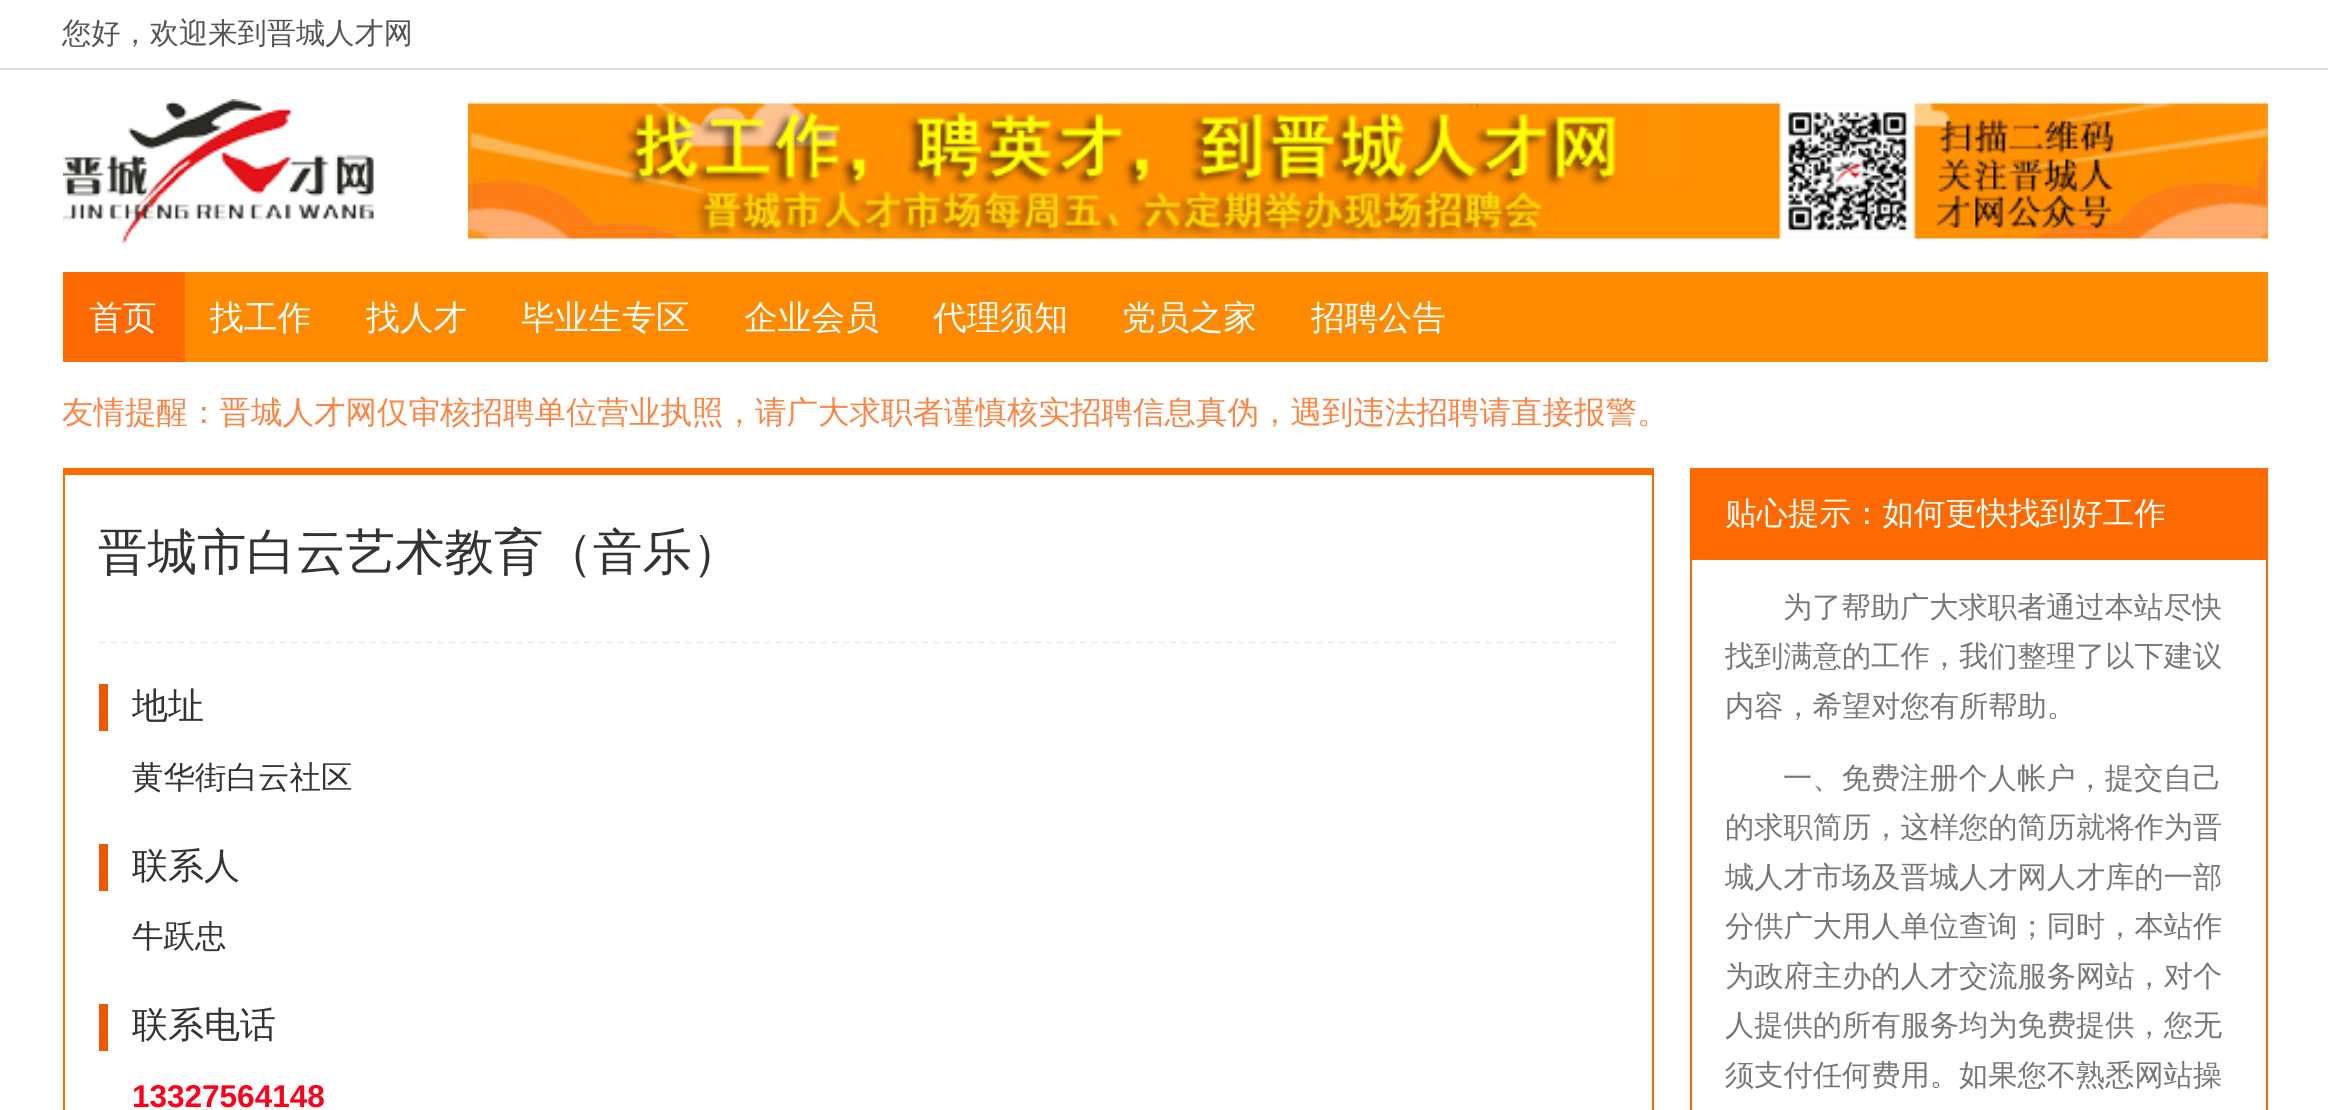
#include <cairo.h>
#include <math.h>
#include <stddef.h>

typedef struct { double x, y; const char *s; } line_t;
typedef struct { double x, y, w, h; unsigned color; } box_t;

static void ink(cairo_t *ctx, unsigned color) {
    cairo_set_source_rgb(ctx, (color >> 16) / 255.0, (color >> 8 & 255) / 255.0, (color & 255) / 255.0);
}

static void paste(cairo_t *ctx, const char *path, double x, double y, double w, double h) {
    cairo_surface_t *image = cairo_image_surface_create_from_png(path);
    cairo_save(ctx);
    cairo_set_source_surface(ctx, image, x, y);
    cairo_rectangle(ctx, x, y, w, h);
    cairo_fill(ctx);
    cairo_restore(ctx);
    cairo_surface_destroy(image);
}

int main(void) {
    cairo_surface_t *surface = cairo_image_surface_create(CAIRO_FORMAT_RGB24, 2328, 1110);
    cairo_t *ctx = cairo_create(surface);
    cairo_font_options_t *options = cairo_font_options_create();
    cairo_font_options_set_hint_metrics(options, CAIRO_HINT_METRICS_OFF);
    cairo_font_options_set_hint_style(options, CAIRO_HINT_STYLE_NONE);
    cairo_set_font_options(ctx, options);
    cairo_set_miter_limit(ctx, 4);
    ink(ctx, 0xFFFFFF);
    cairo_paint(ctx);
    ink(ctx, 0xDFDFDF);
    cairo_rectangle(ctx, 0, 68, 2328, 2);
    cairo_fill(ctx);
    cairo_select_font_face(ctx, "WenQuanYi Zen Hei Medium", CAIRO_FONT_SLANT_NORMAL, CAIRO_FONT_WEIGHT_NORMAL);
    cairo_set_font_size(ctx, 29.25);
    ink(ctx, 0x555555);
    cairo_move_to(ctx, 62, 43);
    cairo_show_text(ctx, "您好，欢迎来到晋城人才网");
    paste(ctx, "media/1.png", 63, 99, 311, 144);
    paste(ctx, "media/2.png", 468, 103, 1800, 136);
    ink(ctx, 0xFF8A00);
    cairo_rectangle(ctx, 185, 272, 2083, 90);
    cairo_fill(ctx);
    ink(ctx, 0xFE6A00);
    cairo_rectangle(ctx, 63, 272, 122, 90);
    cairo_fill(ctx);
    cairo_set_font_size(ctx, 33.75);
    ink(ctx, 0xFFFFFF);
    {
        static const line_t items[] = {
            {89, 329, "首页"},
            {210, 329, "找工作"},
            {366, 329, "找人才"},
            {521, 329, "毕业生专区"},
            {744, 329, "企业会员"},
            {933, 329, "代理须知"},
            {1122, 329, "党员之家"},
            {1311, 329, "招聘公告"},
        };
        for (size_t i = 0; i < sizeof items / sizeof *items; i++) {
            cairo_move_to(ctx, items[i].x, items[i].y);
            cairo_show_text(ctx, items[i].s);
        }
    }
    cairo_set_font_size(ctx, 31.5);
    ink(ctx, 0xFF8442);
    cairo_move_to(ctx, 62, 423);
    cairo_show_text(ctx, "友情提醒：晋城人才网仅审核招聘单位营业执照，请广大求职者谨慎核实招聘信息真伪，遇到违法招聘请直接报警。");
    {
        static const box_t items[] = {
            {63, 468, 1591, 7, 0xFE6A00},
            {1652, 468, 2, 642, 0xFE6A00},
            {63, 468, 2, 642, 0xFE6A00},
        };
        for (size_t i = 0; i < sizeof items / sizeof *items; i++) {
            ink(ctx, items[i].color);
            cairo_rectangle(ctx, items[i].x, items[i].y, items[i].w, items[i].h);
            cairo_fill(ctx);
        }
    }
    cairo_new_path(ctx);
    cairo_move_to(ctx, 99, 642.5);
    cairo_line_to(ctx, 1618, 642.5);
    ink(ctx, 0xEEEEEE);
    cairo_set_line_width(ctx, 2.2);
    cairo_set_dash(ctx, (double[]){6.75, 4.52}, 2, 0);
    cairo_stroke(ctx);
    cairo_set_font_size(ctx, 49.5);
    ink(ctx, 0x333333);
    cairo_move_to(ctx, 98, 569);
    cairo_show_text(ctx, "晋城市白云艺术教育（音乐）");
    ink(ctx, 0xEC5900);
    cairo_rectangle(ctx, 99, 684, 9, 47);
    cairo_fill(ctx);
    cairo_set_font_size(ctx, 36);
    ink(ctx, 0x333333);
    cairo_move_to(ctx, 132, 718);
    cairo_show_text(ctx, "地址");
    cairo_set_font_size(ctx, 31.5);
    cairo_move_to(ctx, 132, 788);
    cairo_show_text(ctx, "黄华街白云社区");
    ink(ctx, 0xEC5900);
    cairo_rectangle(ctx, 99, 844, 9, 47);
    cairo_fill(ctx);
    cairo_set_font_size(ctx, 36);
    ink(ctx, 0x333333);
    cairo_move_to(ctx, 132, 878);
    cairo_show_text(ctx, "联系人");
    cairo_set_font_size(ctx, 31.5);
    cairo_move_to(ctx, 132, 947);
    cairo_show_text(ctx, "牛跃忠");
    ink(ctx, 0xEC5900);
    cairo_rectangle(ctx, 99, 1004, 9, 47);
    cairo_fill(ctx);
    cairo_set_font_size(ctx, 36);
    ink(ctx, 0x333333);
    cairo_move_to(ctx, 132, 1037);
    cairo_show_text(ctx, "联系电话");
    cairo_select_font_face(ctx, "Liberation Sans", CAIRO_FONT_SLANT_NORMAL, CAIRO_FONT_WEIGHT_BOLD);
    cairo_set_font_size(ctx, 31.5);
    ink(ctx, 0xFF001A);
    cairo_move_to(ctx, 132, 1107);
    cairo_show_text(ctx, "13327564148");
    {
        static const box_t items[] = {
            {1690, 468, 578, 7, 0xFE6A00},
            {2266, 468, 2, 642, 0xFE6A00},
            {1690, 468, 2, 642, 0xFE6A00},
            {1692, 475, 574, 85, 0xFE6A00},
        };
        for (size_t i = 0; i < sizeof items / sizeof *items; i++) {
            ink(ctx, items[i].color);
            cairo_rectangle(ctx, items[i].x, items[i].y, items[i].w, items[i].h);
            cairo_fill(ctx);
        }
    }
    cairo_select_font_face(ctx, "WenQuanYi Zen Hei Medium", CAIRO_FONT_SLANT_NORMAL, CAIRO_FONT_WEIGHT_NORMAL);
    ink(ctx, 0xFFFFFF);
    cairo_move_to(ctx, 1725, 524);
    cairo_show_text(ctx, "贴心提示：如何更快找到好工作");
    cairo_set_font_size(ctx, 29.25);
    ink(ctx, 0x777777);
    {
        static const line_t items[] = {
            {1783, 617, "为了帮助广大求职者通过本站尽快"},
            {1725, 666, "找到满意的工作，我们整理了以下建议"},
            {1725, 716, "内容，希望对您有所帮助。"},
            {1783, 788, "一、免费注册个人帐户，提交自己"},
            {1725, 837, "的求职简历，这样您的简历就将作为晋"},
            {1725, 887, "城人才市场及晋城人才网人才库的一部"},
            {1725, 936, "分供广大用人单位查询；同时，本站作"},
            {1725, 986, "为政府主办的人才交流服务网站，对个"},
            {1725, 1035, "人提供的所有服务均为免费提供，您无"},
            {1725, 1085, "须支付任何费用。如果您不熟悉网站操"},
        };
        for (size_t i = 0; i < sizeof items / sizeof *items; i++) {
            cairo_move_to(ctx, items[i].x, items[i].y);
            cairo_show_text(ctx, items[i].s);
        }
    }
    cairo_surface_write_to_png(surface, "image.png");
    cairo_font_options_destroy(options);
    cairo_destroy(ctx);
    cairo_surface_destroy(surface);
    return 0;
}
